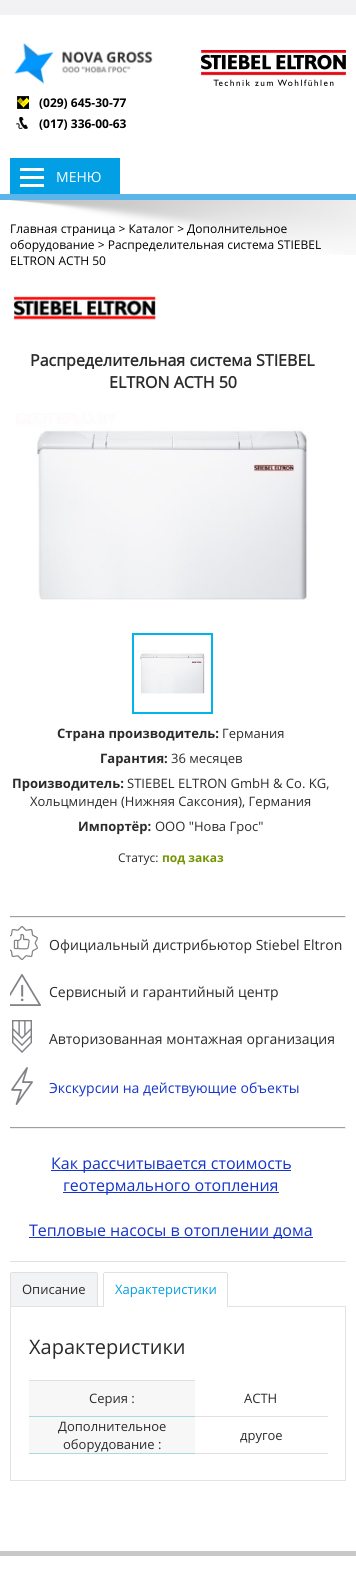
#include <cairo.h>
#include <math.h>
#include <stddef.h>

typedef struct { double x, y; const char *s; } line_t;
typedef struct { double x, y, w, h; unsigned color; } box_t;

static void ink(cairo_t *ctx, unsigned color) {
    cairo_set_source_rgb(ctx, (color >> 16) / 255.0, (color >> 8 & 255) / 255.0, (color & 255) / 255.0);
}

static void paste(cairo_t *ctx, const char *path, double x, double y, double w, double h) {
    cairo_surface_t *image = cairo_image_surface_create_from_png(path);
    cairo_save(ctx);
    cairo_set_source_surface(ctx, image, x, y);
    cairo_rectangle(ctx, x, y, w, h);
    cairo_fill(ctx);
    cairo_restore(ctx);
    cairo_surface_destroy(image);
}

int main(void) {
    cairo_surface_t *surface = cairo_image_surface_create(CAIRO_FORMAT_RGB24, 356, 1592);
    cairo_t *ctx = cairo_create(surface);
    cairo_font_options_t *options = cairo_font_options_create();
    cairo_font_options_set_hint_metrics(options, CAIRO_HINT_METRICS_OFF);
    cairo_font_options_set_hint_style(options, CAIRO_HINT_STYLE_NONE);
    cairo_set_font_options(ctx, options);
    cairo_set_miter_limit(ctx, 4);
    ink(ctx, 0xFFFFFF);
    cairo_paint(ctx);
    ink(ctx, 0xF2F2F4);
    cairo_rectangle(ctx, 0, 0, 356, 15);
    cairo_fill(ctx);
    ink(ctx, 0x59B5EA);
    cairo_rectangle(ctx, 0, 194, 356, 6);
    cairo_fill(ctx);
    paste(ctx, "media/1.png", 14, 43, 139, 41);
    paste(ctx, "media/2.png", 201, 50, 145, 36);
    paste(ctx, "media/3.png", 17, 96, 12, 13);
    cairo_select_font_face(ctx, "Open Sans", CAIRO_FONT_SLANT_NORMAL, CAIRO_FONT_WEIGHT_BOLD);
    cairo_set_font_size(ctx, 12);
    ink(ctx, 0x000000);
    cairo_move_to(ctx, 39, 107);
    cairo_show_text(ctx, "(029) 645-30-77");
    paste(ctx, "media/4.png", 16, 117, 12, 12);
    cairo_move_to(ctx, 39, 128);
    cairo_show_text(ctx, "(017) 336-00-63");
    {
        static const box_t items[] = {
            {10, 158, 110, 36, 0x029FE4},
            {20, 184, 24, 3, 0xFFFFFF},
            {20, 176, 24, 3, 0xFFFFFF},
            {20, 168, 24, 3, 0xFFFFFF},
        };
        for (size_t i = 0; i < sizeof items / sizeof *items; i++) {
            ink(ctx, items[i].color);
            cairo_rectangle(ctx, items[i].x, items[i].y, items[i].w, items[i].h);
            cairo_fill(ctx);
        }
    }
    cairo_select_font_face(ctx, "Open Sans", CAIRO_FONT_SLANT_NORMAL, CAIRO_FONT_WEIGHT_NORMAL);
    cairo_set_font_size(ctx, 14);
    cairo_move_to(ctx, 56, 182);
    cairo_show_text(ctx, "МЕНЮ");
    paste(ctx, "media/5.png", 9, 200, 347, 55);
    cairo_set_font_size(ctx, 12);
    ink(ctx, 0x000000);
    {
        static const line_t items[] = {
            {10, 233, "Главная страница > Каталог > Дополнительное"},
            {10, 249, "оборудование > Распределительная система STIEBEL"},
            {10, 265, "ELTRON ACTH 50"},
        };
        for (size_t i = 0; i < sizeof items / sizeof *items; i++) {
            cairo_move_to(ctx, items[i].x, items[i].y);
            cairo_show_text(ctx, items[i].s);
        }
    }
    paste(ctx, "media/6.png", 13, 296, 143, 24);
    cairo_select_font_face(ctx, "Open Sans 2", CAIRO_FONT_SLANT_NORMAL, CAIRO_FONT_WEIGHT_BOLD);
    cairo_set_font_size(ctx, 16);
    ink(ctx, 0x2B2B2B);
    cairo_move_to(ctx, 30, 366);
    cairo_show_text(ctx, "Распределительная система STIEBEL");
    cairo_move_to(ctx, 109, 388);
    cairo_show_text(ctx, "ELTRON ACTH 50");
    paste(ctx, "media/7.png", 16, 413, 293, 187);
    cairo_rectangle(ctx, 133, 634, 79, 79);
    ink(ctx, 0x01B4EC);
    cairo_stroke(ctx);
    paste(ctx, "media/8.png", 136, 650, 69, 44);
    cairo_select_font_face(ctx, "Open Sans", CAIRO_FONT_SLANT_NORMAL, CAIRO_FONT_WEIGHT_BOLD);
    cairo_set_font_size(ctx, 13);
    ink(ctx, 0x2B2B2B);
    cairo_move_to(ctx, 57, 738);
    cairo_show_text(ctx, "Страна производитель:");
    cairo_select_font_face(ctx, "Open Sans", CAIRO_FONT_SLANT_NORMAL, CAIRO_FONT_WEIGHT_NORMAL);
    cairo_move_to(ctx, 222, 738);
    cairo_show_text(ctx, "Германия");
    cairo_select_font_face(ctx, "Open Sans", CAIRO_FONT_SLANT_NORMAL, CAIRO_FONT_WEIGHT_BOLD);
    cairo_move_to(ctx, 100, 763);
    cairo_show_text(ctx, "Гарантия:");
    cairo_select_font_face(ctx, "Open Sans", CAIRO_FONT_SLANT_NORMAL, CAIRO_FONT_WEIGHT_NORMAL);
    cairo_move_to(ctx, 171, 763);
    cairo_show_text(ctx, "36 месяцев");
    cairo_select_font_face(ctx, "Open Sans", CAIRO_FONT_SLANT_NORMAL, CAIRO_FONT_WEIGHT_BOLD);
    cairo_move_to(ctx, 12, 788);
    cairo_show_text(ctx, "Производитель:");
    cairo_select_font_face(ctx, "Open Sans", CAIRO_FONT_SLANT_NORMAL, CAIRO_FONT_WEIGHT_NORMAL);
    cairo_move_to(ctx, 127, 788);
    cairo_show_text(ctx, "STIEBEL ELTRON GmbH & Co. KG,");
    cairo_move_to(ctx, 30, 806);
    cairo_show_text(ctx, "Хольцминден (Нижняя Саксония), Германия");
    cairo_select_font_face(ctx, "Open Sans", CAIRO_FONT_SLANT_NORMAL, CAIRO_FONT_WEIGHT_BOLD);
    cairo_move_to(ctx, 78, 831);
    cairo_show_text(ctx, "Импортёр:");
    cairo_select_font_face(ctx, "Open Sans", CAIRO_FONT_SLANT_NORMAL, CAIRO_FONT_WEIGHT_NORMAL);
    cairo_move_to(ctx, 155, 831);
    cairo_show_text(ctx, "ООО \"Нова Грос\"");
    cairo_set_font_size(ctx, 12);
    cairo_move_to(ctx, 118, 862);
    cairo_show_text(ctx, "Статус:");
    cairo_select_font_face(ctx, "Open Sans", CAIRO_FONT_SLANT_NORMAL, CAIRO_FONT_WEIGHT_BOLD);
    ink(ctx, 0x729501);
    cairo_move_to(ctx, 162, 862);
    cairo_show_text(ctx, "под заказ");
    {
        static const box_t items[] = {
            {10, 916, 336, 1, 0x9F9F9F},
            {345, 916, 1, 2, 0xEEEEEE},
            {10, 917, 336, 1, 0xEEEEEE},
        };
        for (size_t i = 0; i < sizeof items / sizeof *items; i++) {
            ink(ctx, items[i].color);
            cairo_rectangle(ctx, items[i].x, items[i].y, items[i].w, items[i].h);
            cairo_fill(ctx);
        }
    }
    paste(ctx, "media/9.png", 10, 926, 28, 34);
    cairo_select_font_face(ctx, "Open Sans", CAIRO_FONT_SLANT_NORMAL, CAIRO_FONT_WEIGHT_NORMAL);
    cairo_set_font_size(ctx, 14);
    ink(ctx, 0x2B2B2B);
    cairo_move_to(ctx, 49, 950);
    cairo_show_text(ctx, "Официальный дистрибьютор Stiebel Eltron");
    paste(ctx, "media/10.png", 10, 974, 31, 32);
    cairo_move_to(ctx, 49, 997);
    cairo_show_text(ctx, "Сервисный и гарантийный центр");
    paste(ctx, "media/11.png", 12, 1020, 20, 33);
    cairo_move_to(ctx, 49, 1044);
    cairo_show_text(ctx, "Авторизованная монтажная организация");
    paste(ctx, "media/12.png", 11, 1067, 22, 38);
    ink(ctx, 0x1534CC);
    cairo_move_to(ctx, 49, 1093);
    cairo_show_text(ctx, "Экскурсии на действующие объекты");
    {
        static const box_t items[] = {
            {10, 1127, 336, 1, 0x9F9F9F},
            {345, 1127, 1, 2, 0xEEEEEE},
            {10, 1128, 336, 1, 0xEEEEEE},
            {51, 1170, 240, 1, 0x1534CC},
        };
        for (size_t i = 0; i < sizeof items / sizeof *items; i++) {
            ink(ctx, items[i].color);
            cairo_rectangle(ctx, items[i].x, items[i].y, items[i].w, items[i].h);
            cairo_fill(ctx);
        }
    }
    cairo_set_font_size(ctx, 16);
    cairo_move_to(ctx, 51, 1169);
    cairo_show_text(ctx, "Как рассчитывается стоимость");
    cairo_rectangle(ctx, 63, 1192, 216, 1);
    cairo_fill(ctx);
    cairo_move_to(ctx, 63, 1191);
    cairo_show_text(ctx, "геотермального отопления");
    cairo_rectangle(ctx, 29, 1237, 284, 1);
    cairo_fill(ctx);
    cairo_move_to(ctx, 29, 1236);
    cairo_show_text(ctx, "Тепловые насосы в отоплении дома");
    ink(ctx, 0xE0E0E0);
    cairo_rectangle(ctx, 10, 1261, 336, 1);
    cairo_fill(ctx);
    ink(ctx, 0xF1F3F5);
    cairo_new_path(ctx);
    cairo_move_to(ctx, 12, 1272);
    cairo_line_to(ctx, 96, 1272);
    cairo_curve_to(ctx, 97, 1272, 98, 1273, 98, 1274);
    cairo_line_to(ctx, 98, 1306);
    cairo_line_to(ctx, 10, 1306);
    cairo_line_to(ctx, 10, 1274);
    cairo_curve_to(ctx, 10, 1273, 11, 1272, 12, 1272);
    cairo_close_path(ctx);
    cairo_fill(ctx);
    {
        static const box_t items[] = {
            {11, 1272, 86, 1, 0xE0E0E0},
            {97, 1273, 1, 33, 0xE0E0E0},
            {10, 1273, 1, 33, 0xE0E0E0},
        };
        for (size_t i = 0; i < sizeof items / sizeof *items; i++) {
            ink(ctx, items[i].color);
            cairo_rectangle(ctx, items[i].x, items[i].y, items[i].w, items[i].h);
            cairo_fill(ctx);
        }
    }
    cairo_set_font_size(ctx, 13);
    ink(ctx, 0x2B2B2B);
    cairo_move_to(ctx, 22, 1294);
    cairo_show_text(ctx, "Описание");
    cairo_rectangle(ctx, 10.5, 1306.5, 335, 174);
    ink(ctx, 0xE3E3E3);
    cairo_set_line_width(ctx, 1);
    cairo_stroke(ctx);
    ink(ctx, 0xFFFFFF);
    cairo_new_path(ctx);
    cairo_move_to(ctx, 105, 1272);
    cairo_line_to(ctx, 226, 1272);
    cairo_curve_to(ctx, 227, 1272, 228, 1273, 228, 1274);
    cairo_line_to(ctx, 228, 1307);
    cairo_line_to(ctx, 103, 1307);
    cairo_line_to(ctx, 103, 1274);
    cairo_curve_to(ctx, 103, 1273, 104, 1272, 105, 1272);
    cairo_close_path(ctx);
    cairo_fill(ctx);
    {
        static const box_t items[] = {
            {104, 1272, 123, 1, 0xE0E0E0},
            {227, 1273, 1, 34, 0xE0E0E0},
            {103, 1273, 1, 34, 0xE0E0E0},
        };
        for (size_t i = 0; i < sizeof items / sizeof *items; i++) {
            ink(ctx, items[i].color);
            cairo_rectangle(ctx, items[i].x, items[i].y, items[i].w, items[i].h);
            cairo_fill(ctx);
        }
    }
    ink(ctx, 0x029FE4);
    cairo_move_to(ctx, 115, 1294);
    cairo_show_text(ctx, "Характеристики");
    cairo_set_font_size(ctx, 20);
    ink(ctx, 0x2B2B2B);
    cairo_move_to(ctx, 29, 1354);
    cairo_show_text(ctx, "Характеристики");
    {
        static const box_t items[] = {
            {29, 1381, 166, 35, 0xF7F7F7},
            {29, 1380, 166, 1, 0xE0E0E0},
            {194, 1416, 134, 1, 0xE0E0E0},
            {29, 1416, 166, 1, 0xA8DADE},
        };
        for (size_t i = 0; i < sizeof items / sizeof *items; i++) {
            ink(ctx, items[i].color);
            cairo_rectangle(ctx, items[i].x, items[i].y, items[i].w, items[i].h);
            cairo_fill(ctx);
        }
    }
    cairo_set_font_size(ctx, 13);
    ink(ctx, 0x2B2B2B);
    cairo_move_to(ctx, 89, 1403);
    cairo_show_text(ctx, "Серия :");
    cairo_move_to(ctx, 244, 1403);
    cairo_show_text(ctx, "ACTH");
    {
        static const box_t items[] = {
            {29, 1417, 166, 36, 0xF7F7F7},
            {194, 1453, 134, 1, 0xE0E0E0},
            {29, 1453, 166, 1, 0xA8DADE},
        };
        for (size_t i = 0; i < sizeof items / sizeof *items; i++) {
            ink(ctx, items[i].color);
            cairo_rectangle(ctx, items[i].x, items[i].y, items[i].w, items[i].h);
            cairo_fill(ctx);
        }
    }
    ink(ctx, 0x2B2B2B);
    {
        static const line_t items[] = {
            {58, 1431, "Дополнительное"},
            {63, 1449, "оборудование :"},
            {240, 1440, "другое"},
        };
        for (size_t i = 0; i < sizeof items / sizeof *items; i++) {
            cairo_move_to(ctx, items[i].x, items[i].y);
            cairo_show_text(ctx, items[i].s);
        }
    }
    ink(ctx, 0xC8C8C8);
    cairo_rectangle(ctx, 0, 1551, 356, 5);
    cairo_fill(ctx);
    cairo_surface_write_to_png(surface, "image.png");
    cairo_font_options_destroy(options);
    cairo_destroy(ctx);
    cairo_surface_destroy(surface);
    return 0;
}
